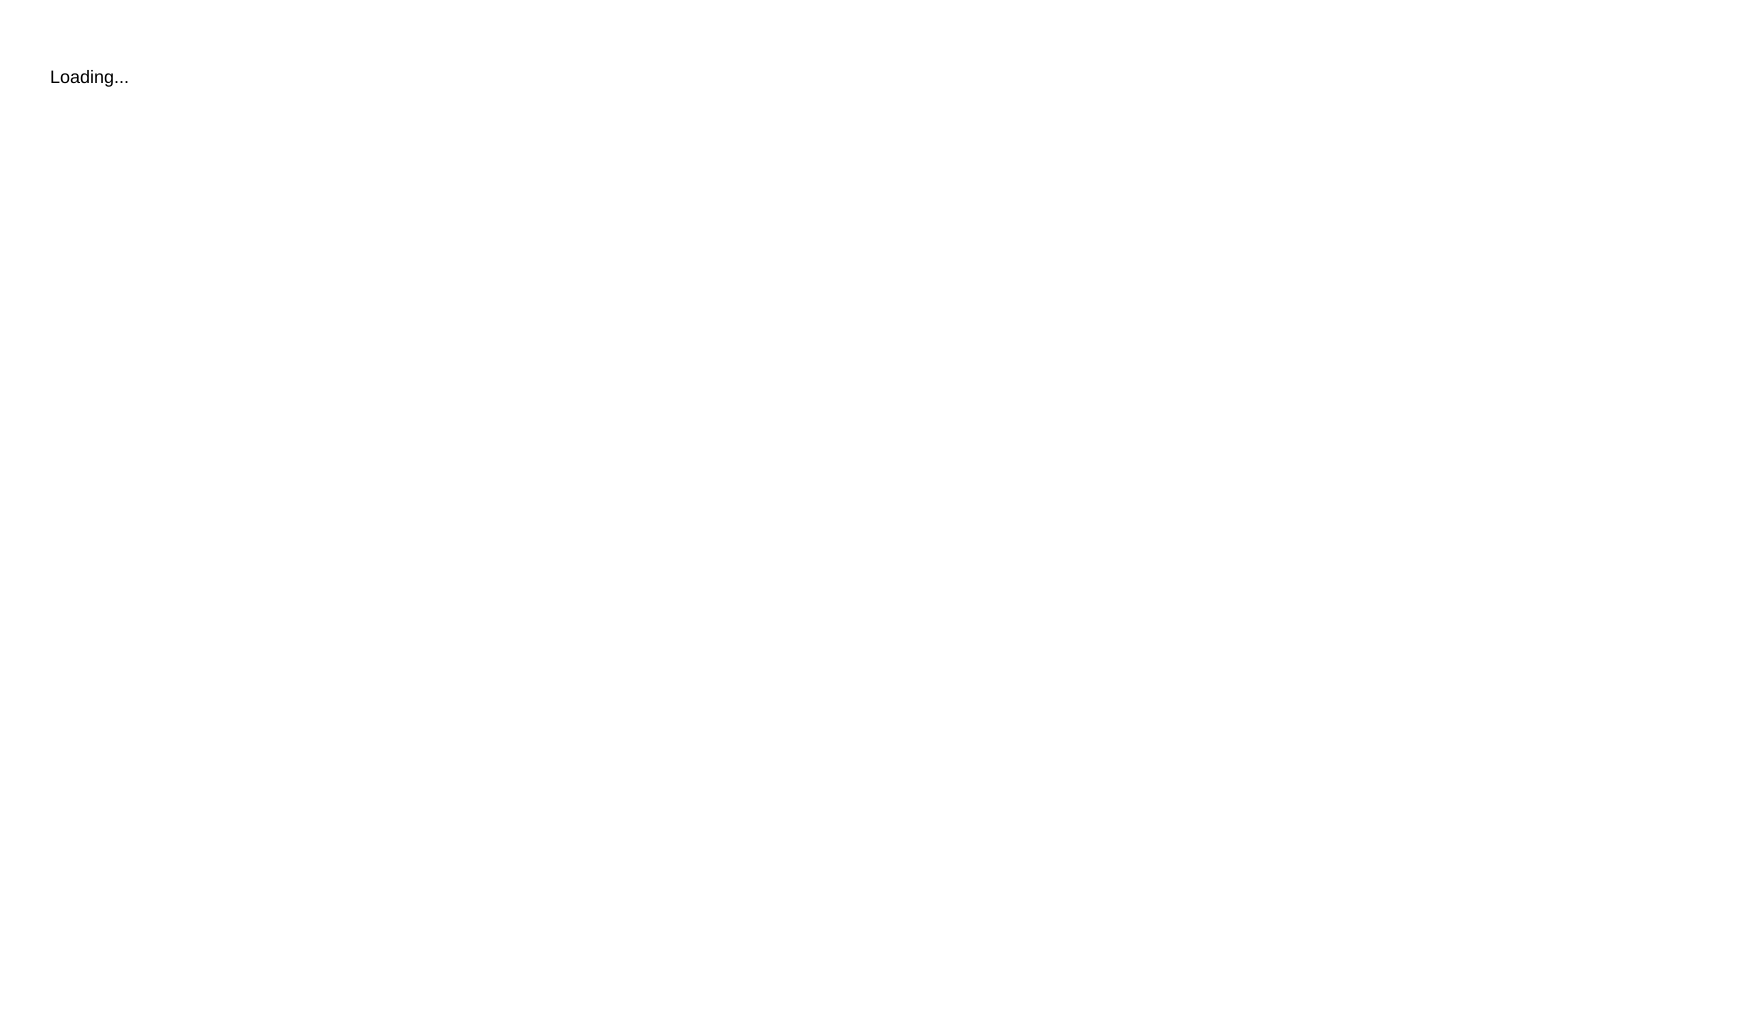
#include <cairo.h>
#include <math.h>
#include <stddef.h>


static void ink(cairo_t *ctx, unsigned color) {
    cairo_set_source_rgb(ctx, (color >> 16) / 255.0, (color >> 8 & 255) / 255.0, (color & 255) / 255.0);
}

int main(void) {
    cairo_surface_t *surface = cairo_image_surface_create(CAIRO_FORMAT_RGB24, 1764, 1014);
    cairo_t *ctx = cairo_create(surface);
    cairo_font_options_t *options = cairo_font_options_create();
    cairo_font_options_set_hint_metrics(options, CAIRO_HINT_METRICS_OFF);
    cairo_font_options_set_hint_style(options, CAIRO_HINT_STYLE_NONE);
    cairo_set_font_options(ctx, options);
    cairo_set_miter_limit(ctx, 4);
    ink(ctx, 0xFFFFFF);
    cairo_paint(ctx);
    cairo_select_font_face(ctx, "Liberation Sans", CAIRO_FONT_SLANT_NORMAL, CAIRO_FONT_WEIGHT_NORMAL);
    cairo_set_font_size(ctx, 18);
    ink(ctx, 0x000000);
    cairo_move_to(ctx, 50, 83);
    cairo_show_text(ctx, "Loading...");
    cairo_surface_write_to_png(surface, "image.png");
    cairo_font_options_destroy(options);
    cairo_destroy(ctx);
    cairo_surface_destroy(surface);
    return 0;
}
